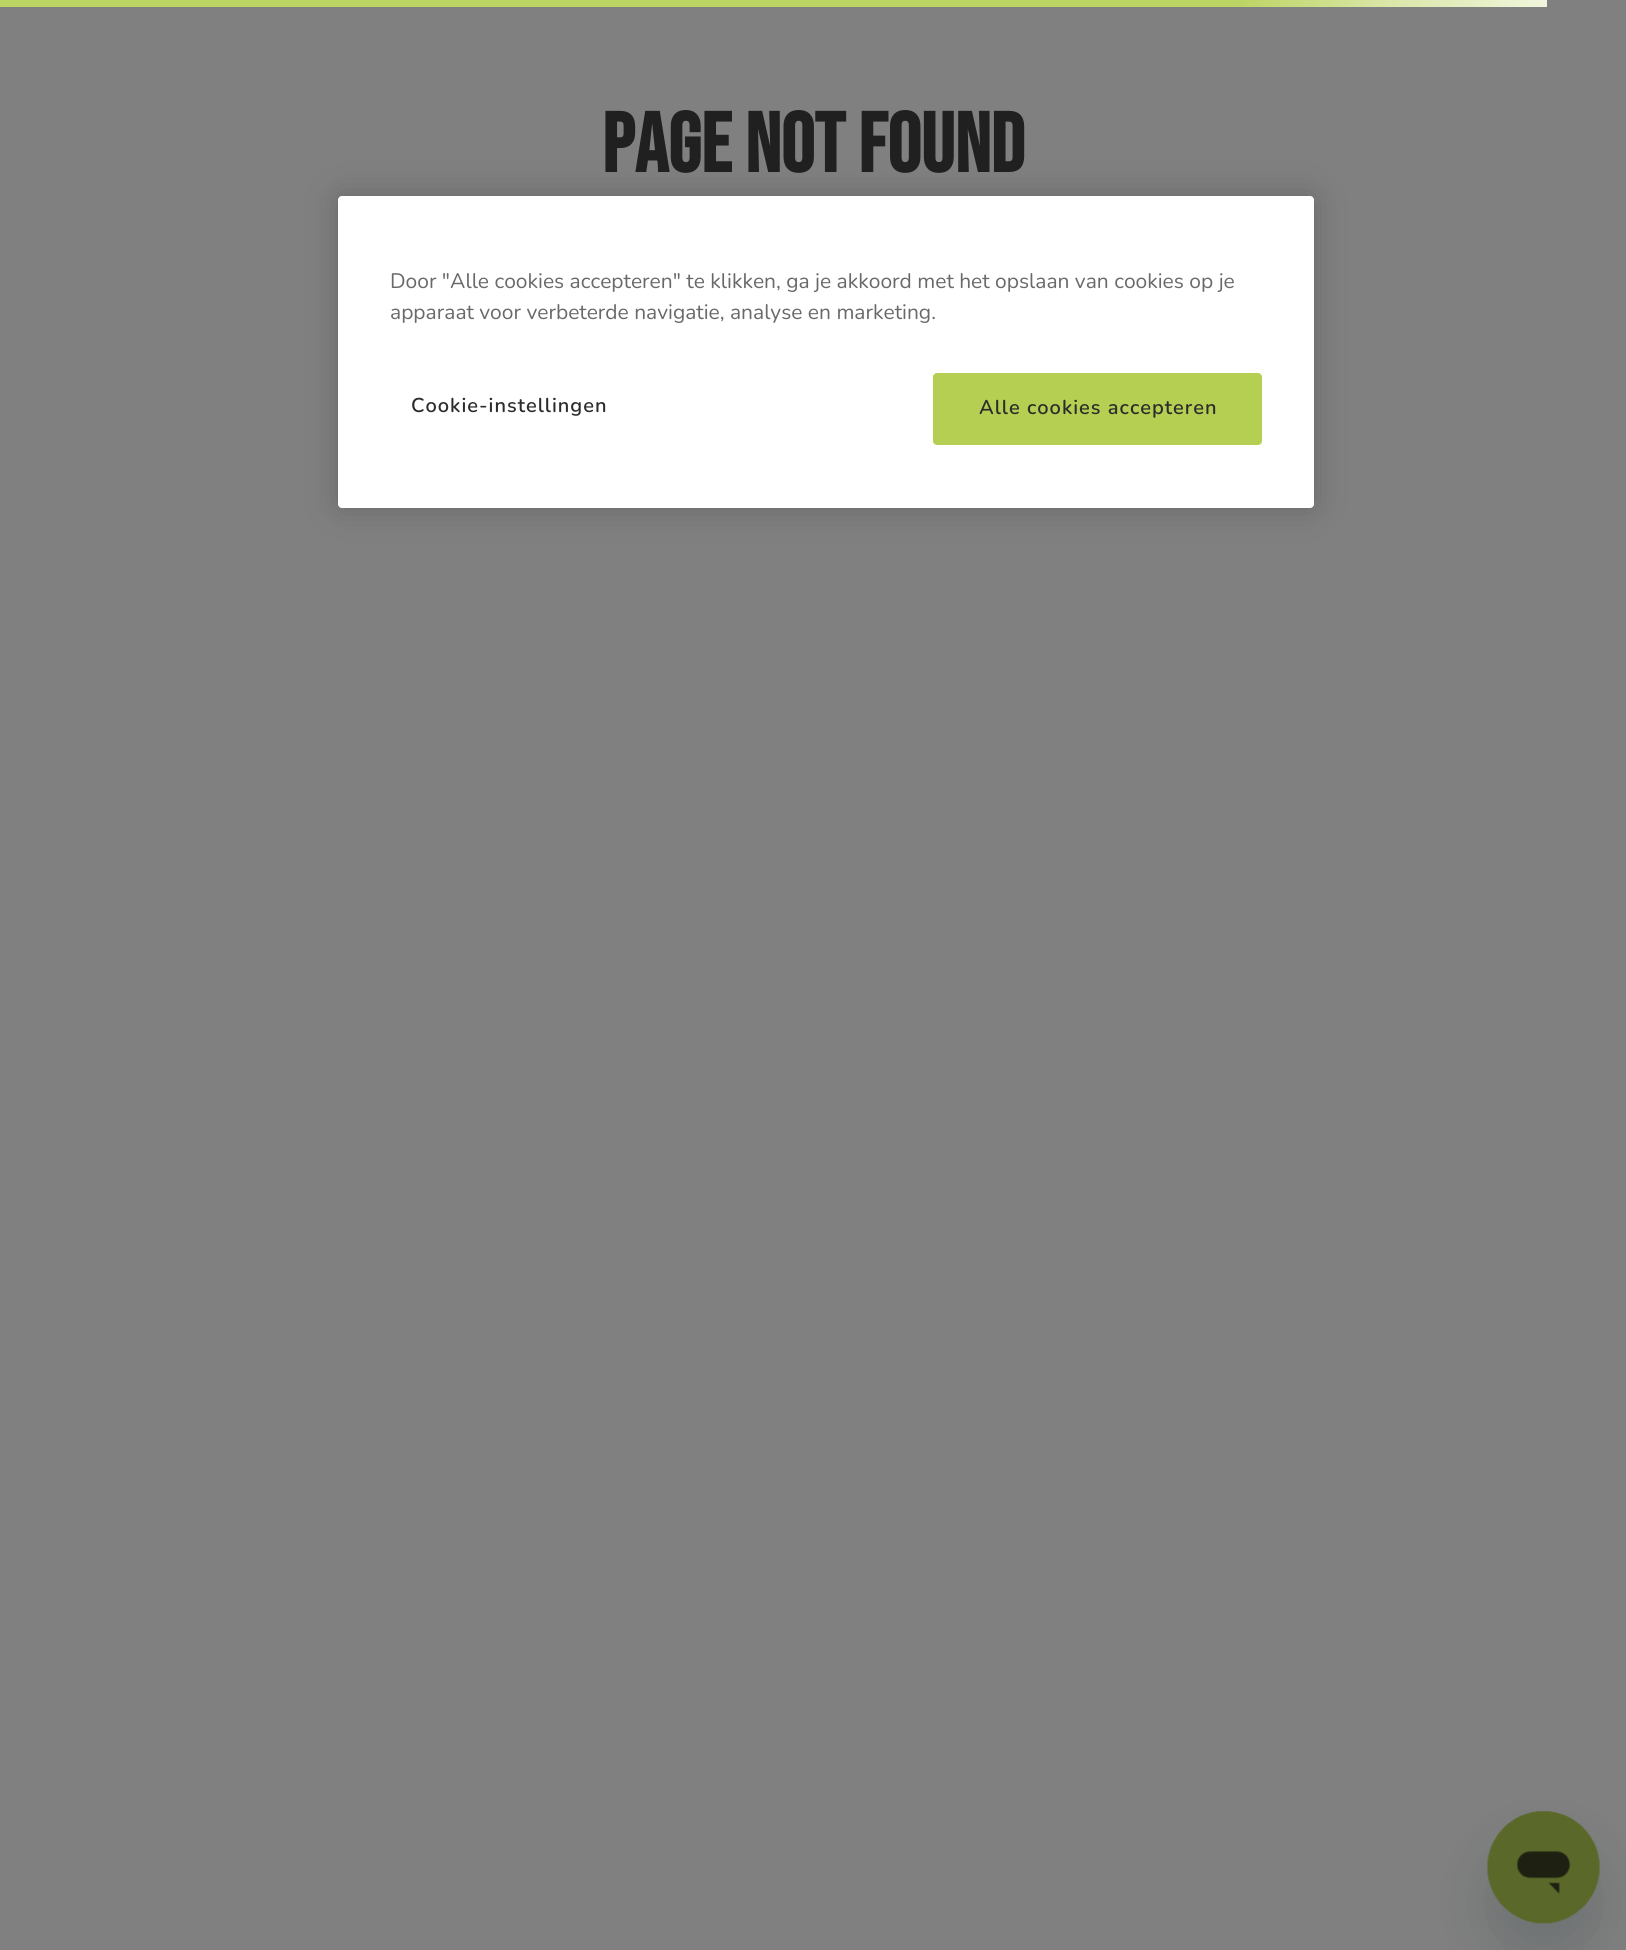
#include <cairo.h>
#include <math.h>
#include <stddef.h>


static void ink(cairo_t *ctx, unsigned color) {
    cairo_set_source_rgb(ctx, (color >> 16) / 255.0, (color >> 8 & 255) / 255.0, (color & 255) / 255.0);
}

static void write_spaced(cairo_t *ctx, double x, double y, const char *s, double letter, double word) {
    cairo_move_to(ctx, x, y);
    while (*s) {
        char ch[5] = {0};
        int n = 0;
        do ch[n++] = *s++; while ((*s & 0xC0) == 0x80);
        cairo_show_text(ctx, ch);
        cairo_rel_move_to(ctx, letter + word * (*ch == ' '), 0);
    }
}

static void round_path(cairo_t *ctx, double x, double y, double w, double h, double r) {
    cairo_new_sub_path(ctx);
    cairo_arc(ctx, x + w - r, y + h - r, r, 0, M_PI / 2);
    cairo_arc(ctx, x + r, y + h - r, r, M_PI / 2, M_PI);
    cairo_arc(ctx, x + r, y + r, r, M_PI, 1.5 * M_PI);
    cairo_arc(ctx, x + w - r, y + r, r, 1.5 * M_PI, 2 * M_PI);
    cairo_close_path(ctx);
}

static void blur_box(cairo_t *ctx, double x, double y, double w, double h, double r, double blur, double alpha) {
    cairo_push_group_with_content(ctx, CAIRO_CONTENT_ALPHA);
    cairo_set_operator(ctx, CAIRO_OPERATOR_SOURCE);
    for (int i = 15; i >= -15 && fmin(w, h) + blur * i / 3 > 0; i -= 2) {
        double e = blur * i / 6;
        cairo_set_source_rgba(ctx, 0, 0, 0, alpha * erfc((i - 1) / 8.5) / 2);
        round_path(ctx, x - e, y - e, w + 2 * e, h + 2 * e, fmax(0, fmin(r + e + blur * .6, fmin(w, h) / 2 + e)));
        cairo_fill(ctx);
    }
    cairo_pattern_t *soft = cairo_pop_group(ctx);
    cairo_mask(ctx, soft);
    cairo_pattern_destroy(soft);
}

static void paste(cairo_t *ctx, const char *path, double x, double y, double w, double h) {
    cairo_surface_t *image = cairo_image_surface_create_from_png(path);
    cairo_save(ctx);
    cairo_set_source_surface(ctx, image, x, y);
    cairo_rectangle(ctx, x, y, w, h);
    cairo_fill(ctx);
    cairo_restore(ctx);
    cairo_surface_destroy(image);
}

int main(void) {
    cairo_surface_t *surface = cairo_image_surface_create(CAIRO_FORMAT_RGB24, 1626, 1950);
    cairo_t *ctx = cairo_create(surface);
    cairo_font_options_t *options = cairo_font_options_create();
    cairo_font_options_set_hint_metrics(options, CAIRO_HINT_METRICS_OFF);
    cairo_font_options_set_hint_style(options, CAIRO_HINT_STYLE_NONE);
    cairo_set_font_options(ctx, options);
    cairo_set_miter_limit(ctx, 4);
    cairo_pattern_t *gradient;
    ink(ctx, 0x808080);
    cairo_paint(ctx);
    gradient = cairo_pattern_create_linear(0, 3.5, 1546, 3.5);
    cairo_pattern_add_color_stop_rgba(gradient, 0.8, 0.737, 0.831, 0.388, 1);
    cairo_pattern_add_color_stop_rgba(gradient, 0.9, 0.855, 0.906, 0.663, 1);
    cairo_pattern_add_color_stop_rgba(gradient, 1, 0.941, 0.961, 0.863, 1);
    cairo_set_source(ctx, gradient);
    cairo_pattern_destroy(gradient);
    cairo_rectangle(ctx, 0, 0, 1547, 7);
    cairo_fill(ctx);
    cairo_select_font_face(ctx, "Bebas Neue", CAIRO_FONT_SLANT_NORMAL, CAIRO_FONT_WEIGHT_BOLD);
    cairo_set_font_size(ctx, 84);
    ink(ctx, 0x202020);
    cairo_move_to(ctx, 602, 172);
    cairo_show_text(ctx, "PAGE NOT FOUND");
    ink(ctx, 0x000000);
    blur_box(ctx, 338, 196, 976, 312, 4, 16, 0.2);
    ink(ctx, 0xFFFFFF);
    round_path(ctx, 338, 196, 976, 312, 4);
    cairo_fill(ctx);
    cairo_select_font_face(ctx, "Nunito", CAIRO_FONT_SLANT_NORMAL, CAIRO_FONT_WEIGHT_NORMAL);
    cairo_set_font_size(ctx, 21);
    ink(ctx, 0x696969);
    cairo_move_to(ctx, 390, 288);
    cairo_show_text(ctx, "Door \"Alle cookies accepteren\" te klikken, ga je akkoord met het opslaan van cookies op je");
    cairo_move_to(ctx, 390, 319);
    cairo_show_text(ctx, "apparaat voor verbeterde navigatie, analyse en marketing.");
    cairo_select_font_face(ctx, "Nunito SemiBold", CAIRO_FONT_SLANT_NORMAL, CAIRO_FONT_WEIGHT_NORMAL);
    cairo_set_font_size(ctx, 20);
    ink(ctx, 0x2C2C2B);
    write_spaced(ctx, 411, 412, "Cookie-instellingen", 1, 0);
    ink(ctx, 0xB5CF52);
    round_path(ctx, 934, 374, 327, 70, 3);
    cairo_fill_preserve(ctx);
    cairo_stroke(ctx);
    ink(ctx, 0x2C2C2B);
    write_spaced(ctx, 979, 414, "Alle cookies accepteren", 1, 0);
    ink(ctx, 0x0C2527);
    blur_box(ctx, 1488, 1846, 112, 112, 56, 26, 0.15);
    paste(ctx, "media/1.png", 1487, 1811, 113, 113);
    cairo_surface_write_to_png(surface, "image.png");
    cairo_font_options_destroy(options);
    cairo_destroy(ctx);
    cairo_surface_destroy(surface);
    return 0;
}
